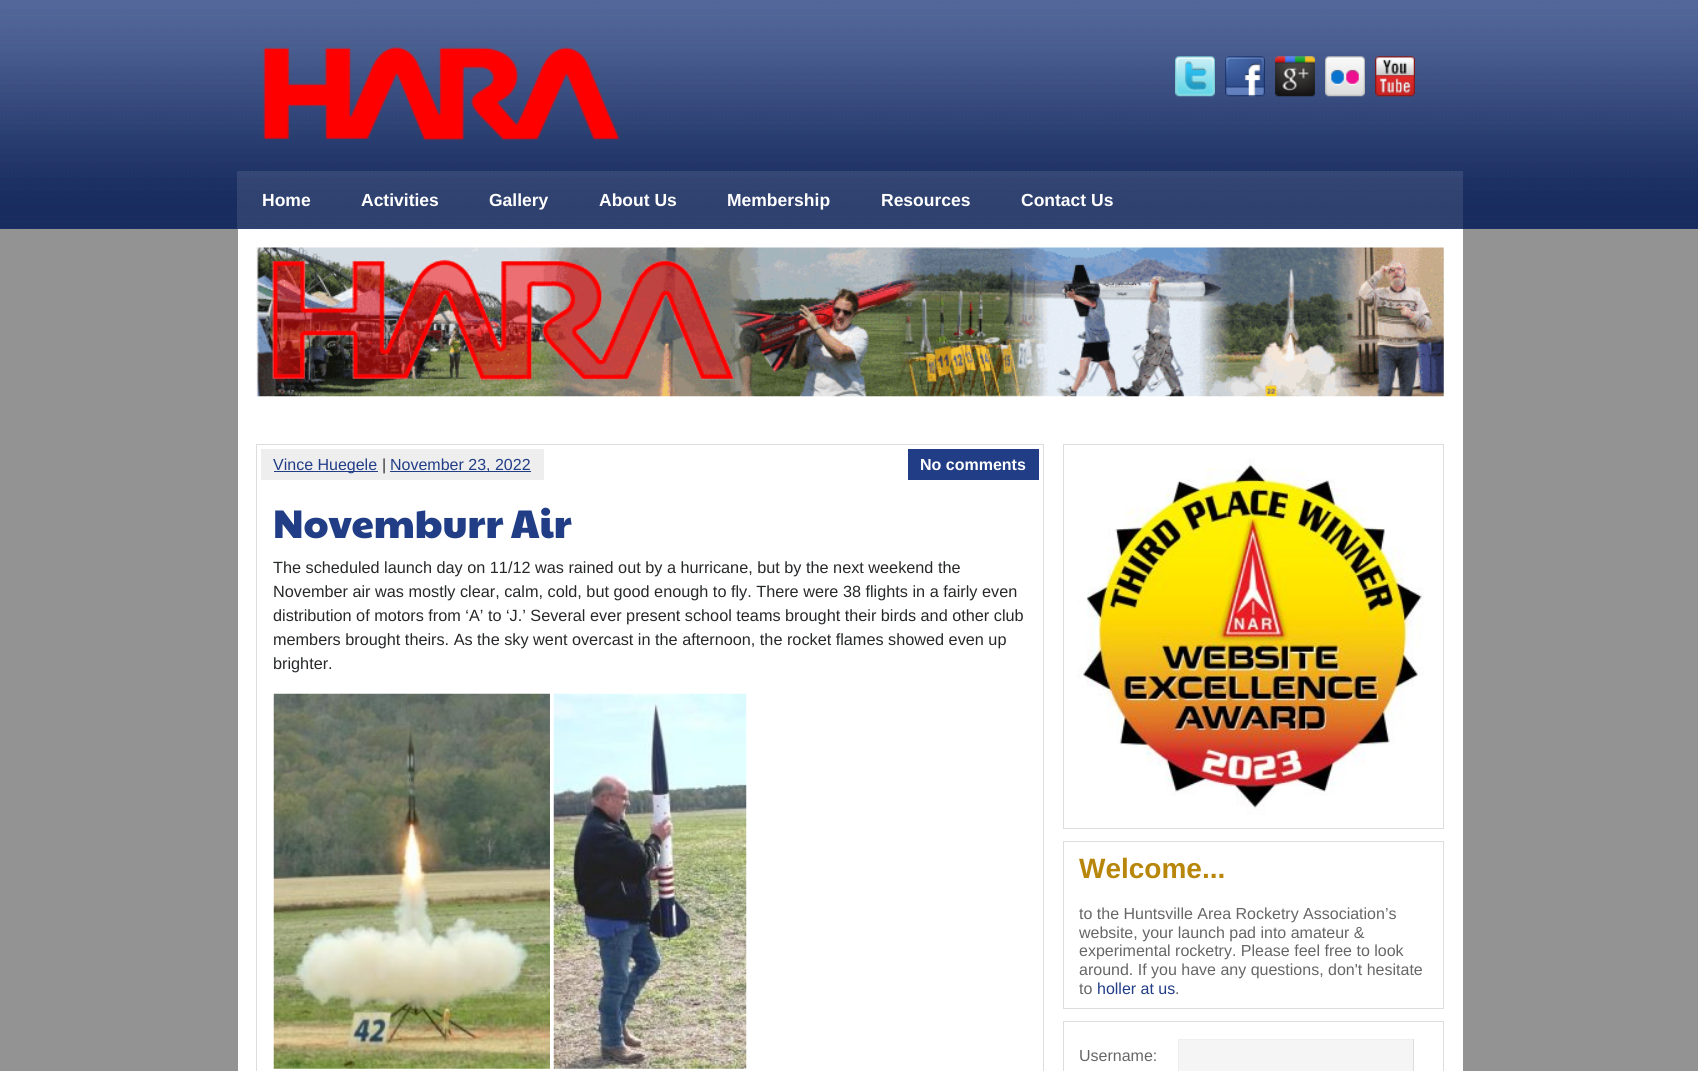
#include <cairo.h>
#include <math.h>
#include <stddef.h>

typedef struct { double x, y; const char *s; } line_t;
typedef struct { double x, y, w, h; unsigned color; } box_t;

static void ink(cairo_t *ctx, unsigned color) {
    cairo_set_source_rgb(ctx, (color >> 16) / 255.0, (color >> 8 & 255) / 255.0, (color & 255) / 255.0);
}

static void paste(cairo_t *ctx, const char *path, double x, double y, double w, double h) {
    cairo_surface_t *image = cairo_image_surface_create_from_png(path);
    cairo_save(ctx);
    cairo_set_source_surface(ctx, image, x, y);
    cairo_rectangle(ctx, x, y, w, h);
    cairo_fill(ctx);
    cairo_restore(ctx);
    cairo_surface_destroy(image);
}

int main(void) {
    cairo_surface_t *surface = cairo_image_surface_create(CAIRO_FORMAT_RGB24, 1698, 1071);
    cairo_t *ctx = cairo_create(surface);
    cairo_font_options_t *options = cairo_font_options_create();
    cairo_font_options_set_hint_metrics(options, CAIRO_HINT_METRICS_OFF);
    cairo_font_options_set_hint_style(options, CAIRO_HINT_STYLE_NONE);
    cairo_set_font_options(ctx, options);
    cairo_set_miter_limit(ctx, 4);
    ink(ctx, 0x939393);
    cairo_paint(ctx);
    ink(ctx, 0x213D86);
    cairo_rectangle(ctx, 0, 0, 1698, 229);
    cairo_fill(ctx);
    paste(ctx, "media/1.png", 0, 0, 1698, 229);
    paste(ctx, "media/2.png", 263, 47, 356, 94);
    paste(ctx, "media/3.png", 1175, 56, 40, 41);
    paste(ctx, "media/4.png", 1225, 56, 40, 41);
    paste(ctx, "media/5.png", 1275, 56, 40, 41);
    paste(ctx, "media/6.png", 1325, 56, 40, 41);
    paste(ctx, "media/7.png", 1375, 56, 40, 41);
    cairo_set_source_rgba(ctx, 1, 1, 1, 0.1);
    cairo_rectangle(ctx, 237, 171, 1226, 58);
    cairo_fill(ctx);
    cairo_select_font_face(ctx, "Liberation Sans", CAIRO_FONT_SLANT_NORMAL, CAIRO_FONT_WEIGHT_BOLD);
    cairo_set_font_size(ctx, 17.5);
    ink(ctx, 0xFFFFFF);
    {
        static const line_t items[] = {
            {262, 206, "Home"},
            {361, 206, "Activities"},
            {489, 206, "Gallery"},
            {599, 206, "About Us"},
            {727, 206, "Membership"},
            {881, 206, "Resources"},
            {1021, 206, "Contact Us"},
        };
        for (size_t i = 0; i < sizeof items / sizeof *items; i++) {
            cairo_move_to(ctx, items[i].x, items[i].y);
            cairo_show_text(ctx, items[i].s);
        }
    }
    cairo_rectangle(ctx, 238, 229, 1225, 842);
    cairo_fill(ctx);
    paste(ctx, "media/8.png", 256, 247, 1188, 150);
    cairo_rectangle(ctx, 256.5, 444.5, 787, 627);
    ink(ctx, 0xDDDDDD);
    cairo_set_line_width(ctx, 1);
    cairo_stroke(ctx);
    ink(ctx, 0xEEEEEE);
    cairo_rectangle(ctx, 261, 449, 283, 31);
    cairo_fill(ctx);
    ink(ctx, 0x213D86);
    cairo_rectangle(ctx, 274, 471, 104, 1);
    cairo_fill(ctx);
    cairo_select_font_face(ctx, "Liberation Sans", CAIRO_FONT_SLANT_NORMAL, CAIRO_FONT_WEIGHT_NORMAL);
    cairo_set_font_size(ctx, 16);
    cairo_move_to(ctx, 273, 470);
    cairo_show_text(ctx, "Vince Huegele");
    ink(ctx, 0x333333);
    cairo_move_to(ctx, 382, 470);
    cairo_show_text(ctx, "|");
    ink(ctx, 0x213D86);
    cairo_rectangle(ctx, 390, 471, 141, 1);
    cairo_fill(ctx);
    cairo_move_to(ctx, 390, 470);
    cairo_show_text(ctx, "November 23, 2022");
    cairo_rectangle(ctx, 908, 449, 131, 31);
    cairo_fill(ctx);
    cairo_select_font_face(ctx, "Liberation Sans", CAIRO_FONT_SLANT_NORMAL, CAIRO_FONT_WEIGHT_BOLD);
    ink(ctx, 0xFFFFFF);
    cairo_move_to(ctx, 920, 470);
    cairo_show_text(ctx, "No comments");
    cairo_select_font_face(ctx, "Paytone One", CAIRO_FONT_SLANT_NORMAL, CAIRO_FONT_WEIGHT_NORMAL);
    cairo_set_font_size(ctx, 40);
    ink(ctx, 0x213D86);
    cairo_move_to(ctx, 273, 538);
    cairo_show_text(ctx, "Novemburr Air");
    cairo_select_font_face(ctx, "Liberation Sans", CAIRO_FONT_SLANT_NORMAL, CAIRO_FONT_WEIGHT_NORMAL);
    cairo_set_font_size(ctx, 16.25);
    ink(ctx, 0x26282A);
    {
        static const line_t items[] = {
            {273, 573, "The scheduled launch day on 11/12 was rained out by a hurricane, but by the next weekend the"},
            {273, 597, "November air was mostly clear, calm, cold, but good enough to fly. There were 38 flights in a fairly even"},
            {273, 621, "distribution of motors from ‘A’ to ‘J.’ Several ever present school teams brought their birds and other club"},
            {273, 645, "members brought theirs. As the sky went overcast in the afternoon, the rocket flames showed even up"},
            {273, 669, "brighter."},
        };
        for (size_t i = 0; i < sizeof items / sizeof *items; i++) {
            cairo_move_to(ctx, items[i].x, items[i].y);
            cairo_show_text(ctx, items[i].s);
        }
    }
    paste(ctx, "media/9.png", 273, 693, 277, 376);
    paste(ctx, "media/10.png", 553, 693, 194, 376);
    cairo_rectangle(ctx, 1063.5, 444.5, 380, 384);
    ink(ctx, 0xDDDDDD);
    cairo_stroke(ctx);
    paste(ctx, "media/11.png", 1077, 458, 347, 357);
    cairo_rectangle(ctx, 1063.5, 841.5, 380, 167);
    cairo_stroke(ctx);
    cairo_select_font_face(ctx, "Liberation Sans", CAIRO_FONT_SLANT_NORMAL, CAIRO_FONT_WEIGHT_BOLD);
    cairo_set_font_size(ctx, 28);
    ink(ctx, 0xB8860B);
    cairo_move_to(ctx, 1079, 878);
    cairo_show_text(ctx, "Welcome...");
    cairo_select_font_face(ctx, "Liberation Sans", CAIRO_FONT_SLANT_NORMAL, CAIRO_FONT_WEIGHT_NORMAL);
    cairo_set_font_size(ctx, 16);
    ink(ctx, 0x666666);
    {
        static const line_t items[] = {
            {1079, 919, "to the Huntsville Area Rocketry Association’s"},
            {1079, 938, "website, your launch pad into amateur &"},
            {1079, 956, "experimental rocketry. Please feel free to look"},
            {1079, 975, "around. If you have any questions, don't hesitate"},
            {1079, 994, "to"},
        };
        for (size_t i = 0; i < sizeof items / sizeof *items; i++) {
            cairo_move_to(ctx, items[i].x, items[i].y);
            cairo_show_text(ctx, items[i].s);
        }
    }
    ink(ctx, 0x213D86);
    cairo_move_to(ctx, 1097, 994);
    cairo_show_text(ctx, "holler at us");
    ink(ctx, 0x666666);
    cairo_move_to(ctx, 1175, 994);
    cairo_show_text(ctx, ".");
    cairo_rectangle(ctx, 1063.5, 1021.5, 380, 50);
    ink(ctx, 0xDDDDDD);
    cairo_stroke(ctx);
    ink(ctx, 0x666666);
    cairo_move_to(ctx, 1079, 1061);
    cairo_show_text(ctx, "Username:");
    {
        static const box_t items[] = {
            {1179, 1040, 234, 31, 0xF5F5F5},
            {1178, 1039, 236, 1, 0xEEEEEE},
            {1413, 1039, 1, 32, 0xDDDDDD},
            {1178, 1039, 1, 32, 0xEEEEEE},
        };
        for (size_t i = 0; i < sizeof items / sizeof *items; i++) {
            ink(ctx, items[i].color);
            cairo_rectangle(ctx, items[i].x, items[i].y, items[i].w, items[i].h);
            cairo_fill(ctx);
        }
    }
    cairo_surface_write_to_png(surface, "image.png");
    cairo_font_options_destroy(options);
    cairo_destroy(ctx);
    cairo_surface_destroy(surface);
    return 0;
}
